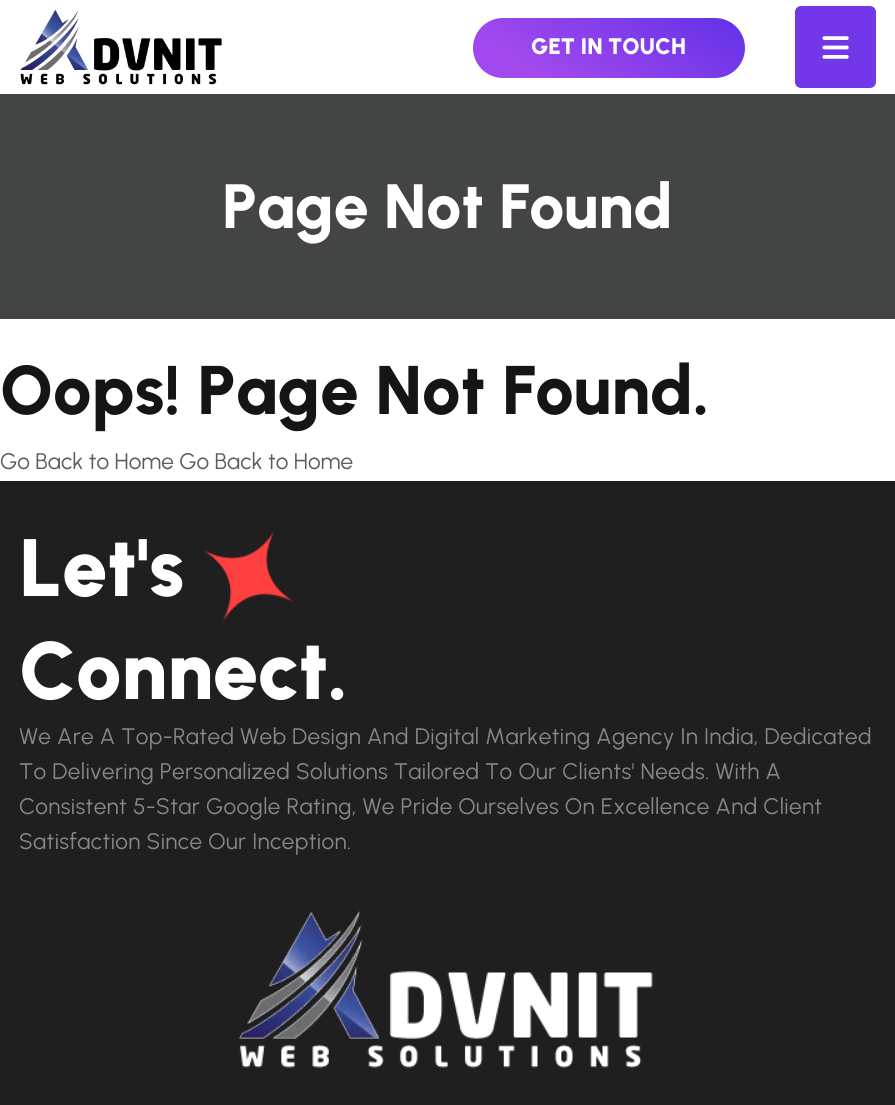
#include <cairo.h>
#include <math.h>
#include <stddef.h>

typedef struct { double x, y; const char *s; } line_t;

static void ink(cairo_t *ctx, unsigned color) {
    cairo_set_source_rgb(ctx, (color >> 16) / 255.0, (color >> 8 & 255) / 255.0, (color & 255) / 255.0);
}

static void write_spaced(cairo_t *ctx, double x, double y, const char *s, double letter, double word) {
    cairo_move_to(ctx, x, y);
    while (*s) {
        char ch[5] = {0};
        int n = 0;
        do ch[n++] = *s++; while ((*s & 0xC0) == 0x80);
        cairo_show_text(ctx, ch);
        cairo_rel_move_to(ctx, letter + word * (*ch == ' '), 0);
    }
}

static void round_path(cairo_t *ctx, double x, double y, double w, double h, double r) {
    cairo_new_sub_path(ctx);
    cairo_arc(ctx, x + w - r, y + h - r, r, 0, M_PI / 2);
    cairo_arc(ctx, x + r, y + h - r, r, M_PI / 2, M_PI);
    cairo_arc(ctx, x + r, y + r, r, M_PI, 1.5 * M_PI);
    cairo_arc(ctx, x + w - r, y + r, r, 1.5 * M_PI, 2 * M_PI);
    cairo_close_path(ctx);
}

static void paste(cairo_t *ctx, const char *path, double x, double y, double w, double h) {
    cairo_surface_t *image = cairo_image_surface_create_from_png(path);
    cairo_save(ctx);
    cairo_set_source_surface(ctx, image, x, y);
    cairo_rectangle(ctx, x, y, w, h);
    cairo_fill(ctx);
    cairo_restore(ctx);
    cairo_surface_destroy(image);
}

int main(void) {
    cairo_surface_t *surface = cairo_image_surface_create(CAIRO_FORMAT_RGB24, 895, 1105);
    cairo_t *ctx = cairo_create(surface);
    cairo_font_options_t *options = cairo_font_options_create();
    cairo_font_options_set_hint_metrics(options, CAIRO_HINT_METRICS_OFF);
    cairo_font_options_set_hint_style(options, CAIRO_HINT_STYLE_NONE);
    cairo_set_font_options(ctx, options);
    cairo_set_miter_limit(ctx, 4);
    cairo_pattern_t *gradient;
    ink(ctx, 0xFFFFFF);
    cairo_paint(ctx);
    paste(ctx, "media/1.png", 20, 10, 202, 75);
    gradient = cairo_pattern_create_linear(557, 130, 660, -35);
    cairo_pattern_add_color_stop_rgba(gradient, 0.2, 0.635, 0.286, 0.929, 1);
    cairo_pattern_add_color_stop_rgba(gradient, 1, 0.38, 0.192, 0.91, 1);
    cairo_set_source(ctx, gradient);
    cairo_pattern_destroy(gradient);
    round_path(ctx, 473, 18, 272, 60, 30);
    cairo_fill(ctx);
    cairo_select_font_face(ctx, "Urbanist Black", CAIRO_FONT_SLANT_NORMAL, CAIRO_FONT_WEIGHT_NORMAL);
    cairo_set_font_size(ctx, 22.5);
    ink(ctx, 0xFFFFFF);
    cairo_move_to(ctx, 531, 54);
    cairo_show_text(ctx, "GET IN TOUCH");
    ink(ctx, 0x7237E9);
    round_path(ctx, 795, 6, 81, 82, 6);
    cairo_fill(ctx);
    paste(ctx, "media/2.png", 822, 36, 27, 23);
    ink(ctx, 0x434444);
    cairo_rectangle(ctx, 0, 94, 895, 225);
    cairo_fill(ctx);
    cairo_select_font_face(ctx, "Urbanist ExtraBold", CAIRO_FONT_SLANT_NORMAL, CAIRO_FONT_WEIGHT_NORMAL);
    cairo_set_font_size(ctx, 62.5);
    ink(ctx, 0xFFFFFF);
    cairo_move_to(ctx, 222, 228);
    cairo_show_text(ctx, "Page Not Found");
    cairo_set_font_size(ctx, 68.75);
    ink(ctx, 0x141515);
    cairo_move_to(ctx, 0, 414);
    cairo_show_text(ctx, "Oops! Page Not Found.");
    cairo_select_font_face(ctx, "Urbanist", CAIRO_FONT_SLANT_NORMAL, CAIRO_FONT_WEIGHT_NORMAL);
    cairo_set_font_size(ctx, 22.5);
    ink(ctx, 0x5B5B5B);
    cairo_move_to(ctx, 0, 469);
    cairo_show_text(ctx, "Go Back to Home Go Back to Home");
    ink(ctx, 0x1F1F1F);
    cairo_rectangle(ctx, 0, 481, 895, 624);
    cairo_fill(ctx);
    cairo_select_font_face(ctx, "Urbanist Black", CAIRO_FONT_SLANT_NORMAL, CAIRO_FONT_WEIGHT_NORMAL);
    cairo_set_font_size(ctx, 81.25);
    ink(ctx, 0xFFFFFF);
    write_spaced(ctx, 19, 596, "Let's", -0.5, 0);
    paste(ctx, "media/3.png", 203, 531, 91, 90);
    write_spaced(ctx, 19, 699, "Connect.", -0.5, 0);
    cairo_select_font_face(ctx, "Urbanist", CAIRO_FONT_SLANT_NORMAL, CAIRO_FONT_WEIGHT_NORMAL);
    cairo_set_font_size(ctx, 22.5);
    ink(ctx, 0x878787);
    {
        static const line_t items[] = {
            {19, 744, "We Are A Top-Rated Web Design And Digital Marketing Agency In India, Dedicated"},
            {19, 779, "To Delivering Personalized Solutions Tailored To Our Clients' Needs. With A"},
            {19, 814, "Consistent 5-Star Google Rating, We Pride Ourselves On Excellence And Client"},
            {19, 849, "Satisfaction Since Our Inception."},
        };
        for (size_t i = 0; i < sizeof items / sizeof *items; i++) {
            write_spaced(ctx, items[i].x, items[i].y, items[i].s, 0.38, 0);
        }
    }
    paste(ctx, "media/4.png", 238, 911, 415, 157);
    cairo_surface_write_to_png(surface, "image.png");
    cairo_font_options_destroy(options);
    cairo_destroy(ctx);
    cairo_surface_destroy(surface);
    return 0;
}
